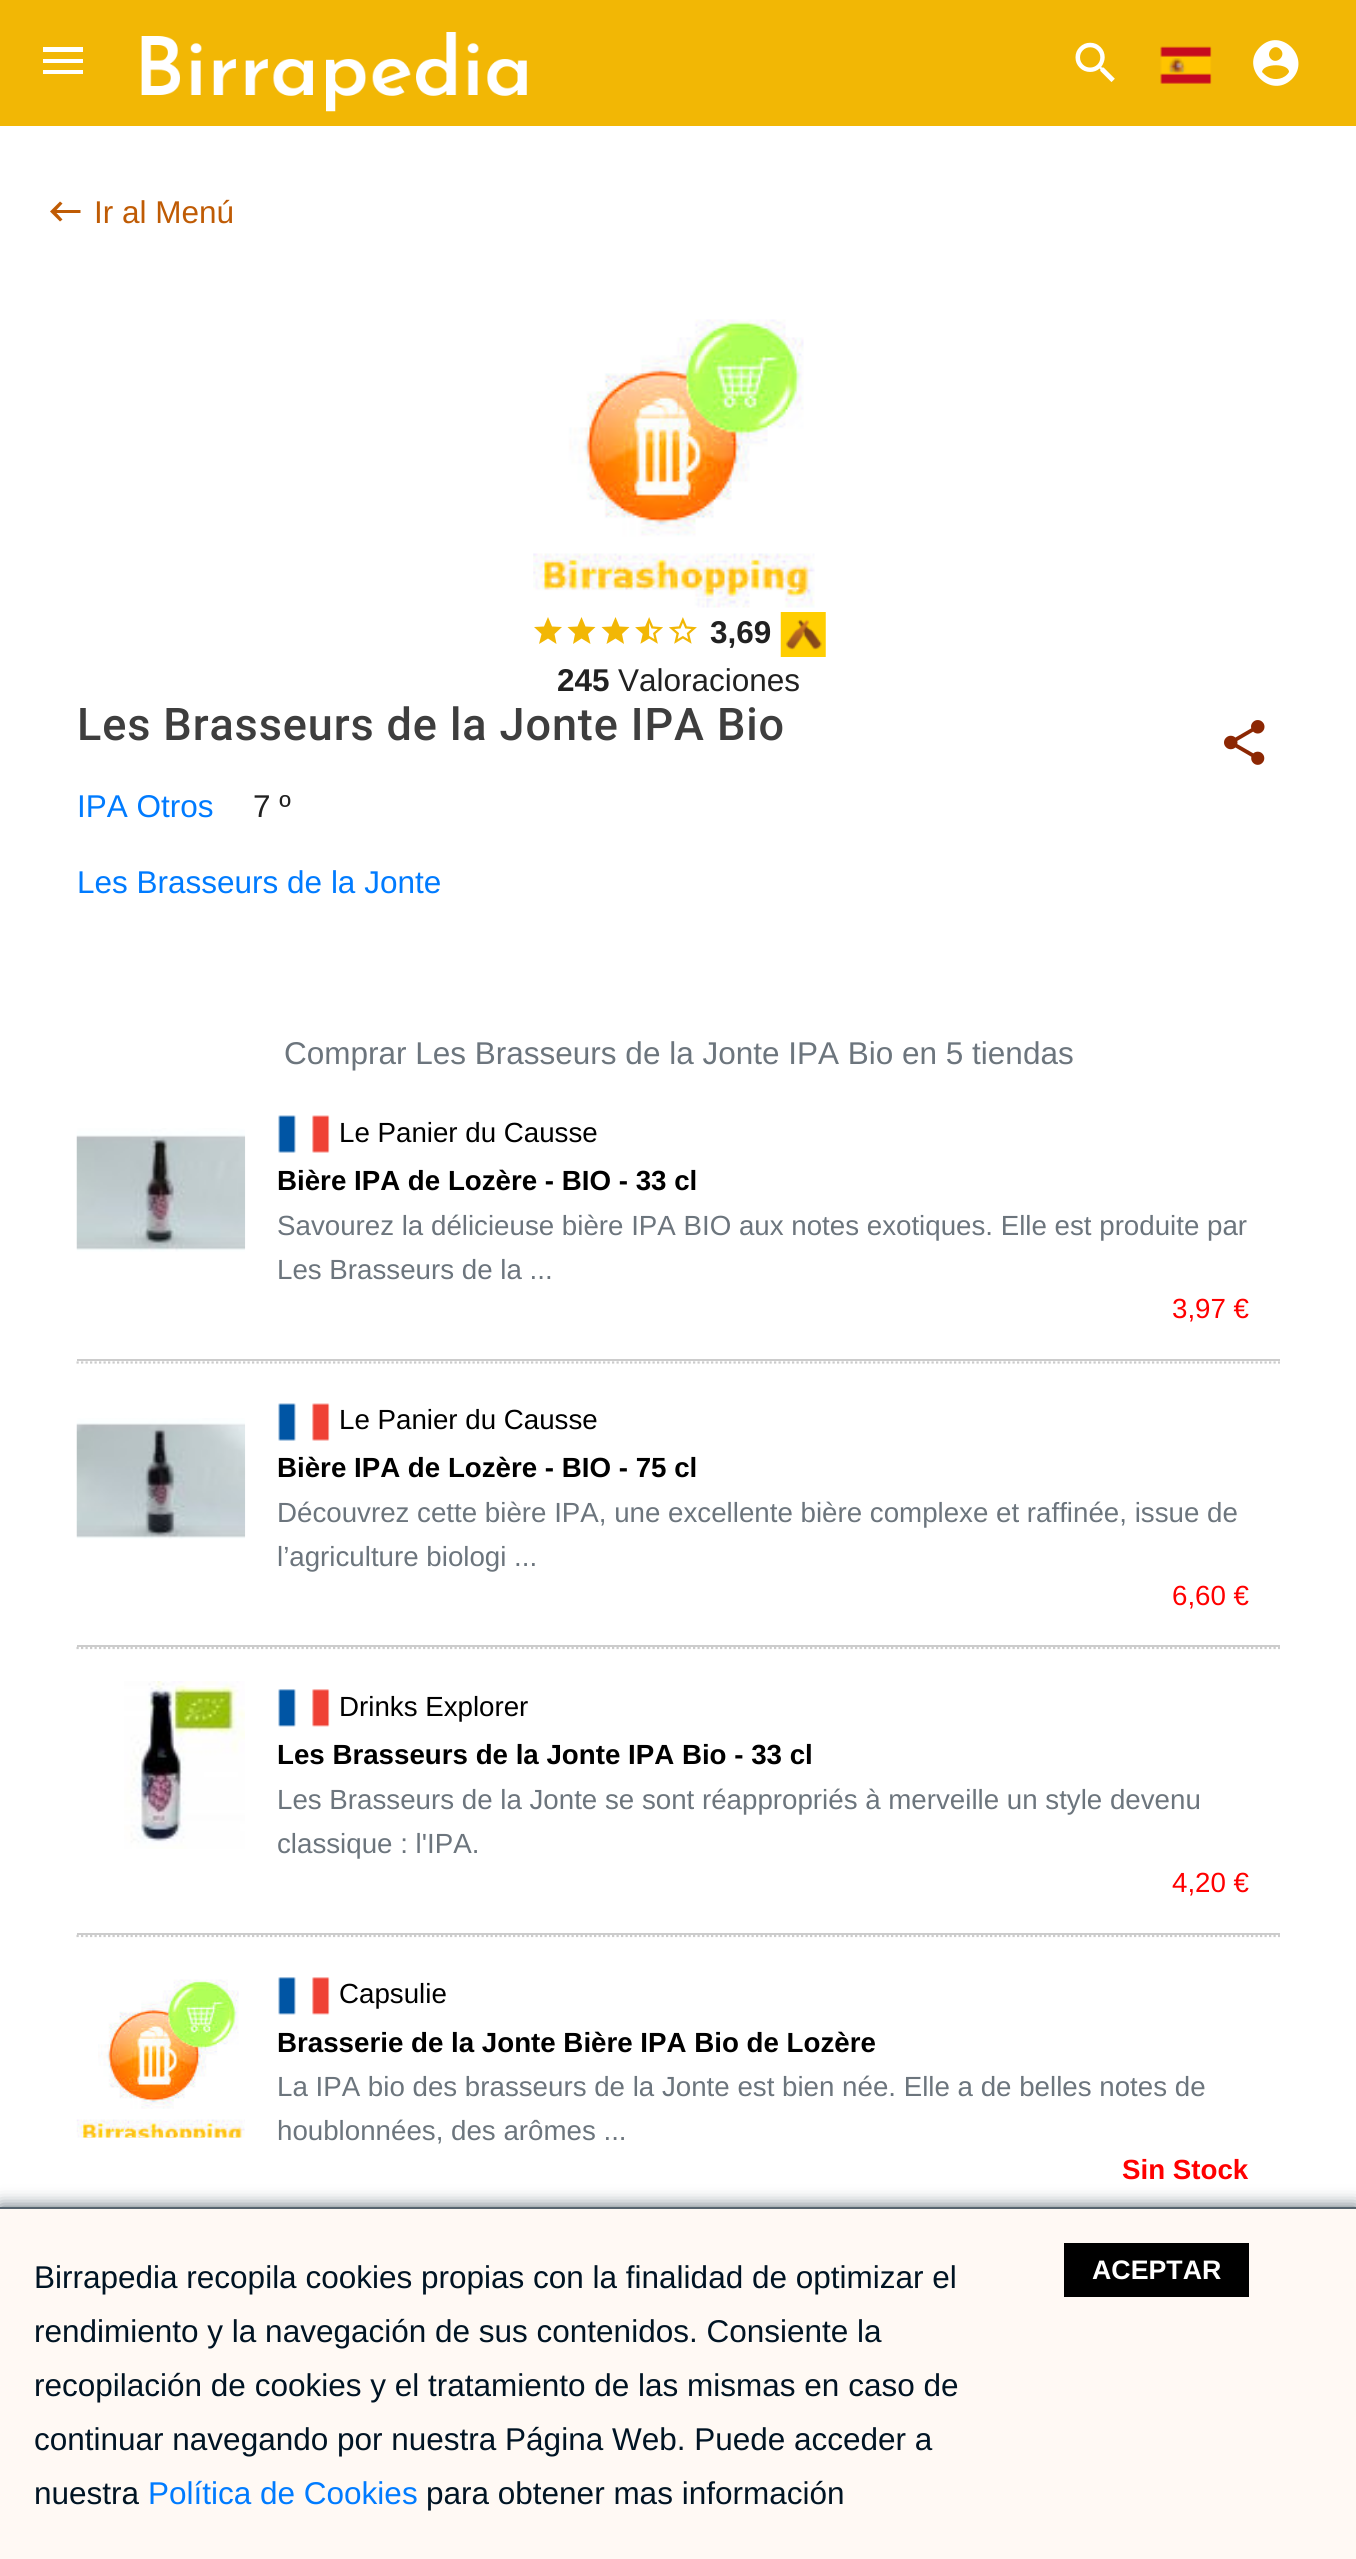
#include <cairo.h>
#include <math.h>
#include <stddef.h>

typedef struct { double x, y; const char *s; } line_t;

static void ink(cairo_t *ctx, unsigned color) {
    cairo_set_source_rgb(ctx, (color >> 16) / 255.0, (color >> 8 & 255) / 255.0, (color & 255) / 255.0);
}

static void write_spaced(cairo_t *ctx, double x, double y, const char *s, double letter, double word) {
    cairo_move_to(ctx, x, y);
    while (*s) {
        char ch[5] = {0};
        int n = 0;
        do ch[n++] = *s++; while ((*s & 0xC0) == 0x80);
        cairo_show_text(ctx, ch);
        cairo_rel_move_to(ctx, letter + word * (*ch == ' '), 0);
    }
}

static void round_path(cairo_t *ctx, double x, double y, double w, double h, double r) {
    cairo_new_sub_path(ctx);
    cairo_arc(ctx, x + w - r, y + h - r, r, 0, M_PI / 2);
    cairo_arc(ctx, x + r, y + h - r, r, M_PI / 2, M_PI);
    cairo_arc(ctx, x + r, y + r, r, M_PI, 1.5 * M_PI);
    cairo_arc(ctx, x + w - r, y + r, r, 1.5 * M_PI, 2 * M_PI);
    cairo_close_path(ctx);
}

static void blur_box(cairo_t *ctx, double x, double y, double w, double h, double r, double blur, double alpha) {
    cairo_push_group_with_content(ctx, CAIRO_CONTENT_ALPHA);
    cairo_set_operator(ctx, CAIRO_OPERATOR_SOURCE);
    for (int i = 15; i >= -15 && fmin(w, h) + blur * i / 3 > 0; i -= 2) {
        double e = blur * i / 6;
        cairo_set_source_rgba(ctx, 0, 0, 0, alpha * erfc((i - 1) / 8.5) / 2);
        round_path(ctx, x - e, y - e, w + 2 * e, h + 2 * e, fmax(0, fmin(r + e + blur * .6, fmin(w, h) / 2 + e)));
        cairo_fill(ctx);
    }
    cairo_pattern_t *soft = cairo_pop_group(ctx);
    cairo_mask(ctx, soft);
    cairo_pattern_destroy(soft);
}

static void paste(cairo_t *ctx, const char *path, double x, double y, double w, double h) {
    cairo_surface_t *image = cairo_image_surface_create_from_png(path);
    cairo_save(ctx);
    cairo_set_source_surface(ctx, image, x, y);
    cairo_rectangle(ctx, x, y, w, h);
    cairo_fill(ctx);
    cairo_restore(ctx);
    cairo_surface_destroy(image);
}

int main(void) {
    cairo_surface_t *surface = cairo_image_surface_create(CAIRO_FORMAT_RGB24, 1356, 2559);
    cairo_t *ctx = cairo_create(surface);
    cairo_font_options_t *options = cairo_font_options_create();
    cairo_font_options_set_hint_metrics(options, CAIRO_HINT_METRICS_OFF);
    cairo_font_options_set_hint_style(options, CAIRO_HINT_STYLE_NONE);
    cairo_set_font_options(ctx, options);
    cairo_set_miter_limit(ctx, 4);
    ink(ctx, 0xFFFFFF);
    cairo_paint(ctx);
    ink(ctx, 0xF2B705);
    cairo_rectangle(ctx, 0, 0, 1356, 126);
    cairo_fill(ctx);
    ink(ctx, 0xFFFFFF);
    cairo_new_path(ctx);
    cairo_move_to(ctx, 43, 47);
    cairo_line_to(ctx, 83, 47);
    cairo_line_to(ctx, 83, 52);
    cairo_line_to(ctx, 43, 52);
    cairo_close_path(ctx);
    cairo_move_to(ctx, 43, 63);
    cairo_line_to(ctx, 43, 59);
    cairo_line_to(ctx, 83, 59);
    cairo_line_to(ctx, 83, 63);
    cairo_close_path(ctx);
    cairo_move_to(ctx, 43, 74);
    cairo_line_to(ctx, 43, 70);
    cairo_line_to(ctx, 83, 70);
    cairo_line_to(ctx, 83, 74);
    cairo_close_path(ctx);
    cairo_fill(ctx);
    paste(ctx, "media/1.png", 141, 32, 386, 80);
    paste(ctx, "media/2.png", 1075, 42, 40, 40);
    paste(ctx, "media/3.png", 1160, 46, 52, 38);
    cairo_new_path(ctx);
    cairo_move_to(ctx, 1268, 77);
    cairo_curve_to(ctx, 1275, 81, 1285, 79, 1289, 72);
    cairo_curve_to(ctx, 1289, 63, 1263, 63, 1262, 72);
    cairo_curve_to(ctx, 1264, 74, 1266, 76, 1268, 77);
    cairo_close_path(ctx);
    cairo_move_to(ctx, 1280, 49);
    cairo_curve_to(ctx, 1274, 43, 1265, 53, 1271, 59);
    cairo_curve_to(ctx, 1277, 65, 1287, 55, 1280, 49);
    cairo_close_path(ctx);
    cairo_move_to(ctx, 1260, 47);
    cairo_curve_to(ctx, 1281, 26, 1312, 58, 1292, 79);
    cairo_curve_to(ctx, 1271, 100, 1239, 68, 1260, 47);
    cairo_close_path(ctx);
    cairo_fill(ctx);
    ink(ctx, 0xBF5B04);
    cairo_new_path(ctx);
    cairo_move_to(ctx, 80.5, 210);
    cairo_line_to(ctx, 80.5, 213);
    cairo_line_to(ctx, 56.5, 213);
    cairo_line_to(ctx, 62.5, 219.5);
    cairo_line_to(ctx, 60, 221.5);
    cairo_line_to(ctx, 50, 211.5);
    cairo_line_to(ctx, 60, 201.5);
    cairo_line_to(ctx, 62.5, 203.5);
    cairo_line_to(ctx, 56.5, 210);
    cairo_close_path(ctx);
    cairo_fill(ctx);
    cairo_select_font_face(ctx, "Liberation Sans", CAIRO_FONT_SLANT_NORMAL, CAIRO_FONT_WEIGHT_NORMAL);
    cairo_set_font_size(ctx, 31.5);
    cairo_move_to(ctx, 94, 223);
    cairo_show_text(ctx, "Ir al Menú");
    paste(ctx, "media/4.png", 533, 319, 282, 289);
    ink(ctx, 0xF2B705);
    cairo_new_path(ctx);
    cairo_move_to(ctx, 548, 638.5);
    cairo_line_to(ctx, 539, 644);
    cairo_line_to(ctx, 541.5, 634);
    cairo_line_to(ctx, 534, 627);
    cairo_line_to(ctx, 544, 626.5);
    cairo_line_to(ctx, 548, 617);
    cairo_line_to(ctx, 552, 626.5);
    cairo_line_to(ctx, 562, 627);
    cairo_line_to(ctx, 554.5, 634);
    cairo_line_to(ctx, 556.5, 644);
    cairo_close_path(ctx);
    cairo_move_to(ctx, 581.5, 638.5);
    cairo_line_to(ctx, 573, 644);
    cairo_line_to(ctx, 575, 634);
    cairo_line_to(ctx, 567.5, 627);
    cairo_line_to(ctx, 577.5, 626.5);
    cairo_line_to(ctx, 581.5, 617);
    cairo_line_to(ctx, 585.5, 626.5);
    cairo_line_to(ctx, 595.5, 627);
    cairo_line_to(ctx, 588, 634);
    cairo_line_to(ctx, 590.5, 644);
    cairo_close_path(ctx);
    cairo_fill(ctx);
    cairo_new_path(ctx);
    cairo_move_to(ctx, 615.5, 638.5);
    cairo_line_to(ctx, 606.5, 644);
    cairo_line_to(ctx, 609, 634);
    cairo_line_to(ctx, 601.5, 627);
    cairo_line_to(ctx, 611.5, 626.5);
    cairo_line_to(ctx, 615.5, 617);
    cairo_line_to(ctx, 619.5, 626.5);
    cairo_line_to(ctx, 629.5, 627);
    cairo_line_to(ctx, 622, 634);
    cairo_line_to(ctx, 624, 644);
    cairo_close_path(ctx);
    cairo_fill(ctx);
    paste(ctx, "media/5.png", 635, 617, 28, 27);
    paste(ctx, "media/6.png", 669, 617, 28, 27);
    cairo_select_font_face(ctx, "Liberation Sans", CAIRO_FONT_SLANT_NORMAL, CAIRO_FONT_WEIGHT_BOLD);
    ink(ctx, 0x212121);
    cairo_move_to(ctx, 710, 643);
    cairo_show_text(ctx, "3,69");
    paste(ctx, "media/7.png", 780, 612, 46, 45);
    cairo_move_to(ctx, 557, 691);
    cairo_show_text(ctx, "245");
    cairo_select_font_face(ctx, "Liberation Sans", CAIRO_FONT_SLANT_NORMAL, CAIRO_FONT_WEIGHT_NORMAL);
    cairo_move_to(ctx, 618, 691);
    cairo_show_text(ctx, "Valoraciones");
    cairo_select_font_face(ctx, "Roboto Medium", CAIRO_FONT_SLANT_NORMAL, CAIRO_FONT_WEIGHT_NORMAL);
    cairo_set_font_size(ctx, 45);
    ink(ctx, 0x3E3E3E);
    write_spaced(ctx, 77, 740, "Les Brasseurs de la Jonte IPA Bio", 0.9, 0);
    paste(ctx, "media/8.png", 1224, 720, 41, 45);
    cairo_select_font_face(ctx, "Liberation Sans", CAIRO_FONT_SLANT_NORMAL, CAIRO_FONT_WEIGHT_NORMAL);
    cairo_set_font_size(ctx, 31.5);
    ink(ctx, 0x007BFF);
    cairo_move_to(ctx, 77, 817);
    cairo_show_text(ctx, "IPA Otros");
    ink(ctx, 0x212121);
    cairo_move_to(ctx, 253, 817);
    cairo_show_text(ctx, "7 º");
    ink(ctx, 0x007BFF);
    cairo_move_to(ctx, 77, 893);
    cairo_show_text(ctx, "Les Brasseurs de la Jonte");
    ink(ctx, 0x6C757D);
    cairo_move_to(ctx, 284, 1064);
    cairo_show_text(ctx, "Comprar Les Brasseurs de la Jonte IPA Bio en 5 tiendas");
    paste(ctx, "media/9.png", 76, 1128, 170, 124);
    paste(ctx, "media/10.png", 278, 1115, 52, 38);
    cairo_set_font_size(ctx, 27.7);
    ink(ctx, 0x000000);
    cairo_move_to(ctx, 339, 1142);
    cairo_show_text(ctx, "Le Panier du Causse");
    cairo_select_font_face(ctx, "Liberation Sans", CAIRO_FONT_SLANT_NORMAL, CAIRO_FONT_WEIGHT_BOLD);
    cairo_move_to(ctx, 277, 1190);
    cairo_show_text(ctx, "Bière IPA de Lozère - BIO - 33 cl");
    cairo_select_font_face(ctx, "Liberation Sans", CAIRO_FONT_SLANT_NORMAL, CAIRO_FONT_WEIGHT_NORMAL);
    ink(ctx, 0x6C757D);
    cairo_move_to(ctx, 277, 1235);
    cairo_show_text(ctx, "Savourez la délicieuse bière IPA BIO aux notes exotiques. Elle est produite par");
    cairo_move_to(ctx, 277, 1279);
    cairo_show_text(ctx, "Les Brasseurs de la ...");
    ink(ctx, 0xFF0000);
    cairo_move_to(ctx, 1172, 1318);
    cairo_show_text(ctx, "3,97 €");
    ink(ctx, 0xCCCCCC);
    cairo_rectangle(ctx, 77, 1359, 1203, 2);
    cairo_fill(ctx);
    cairo_new_path(ctx);
    cairo_move_to(ctx, 76.5, 1362.5);
    cairo_line_to(ctx, 1280, 1362.5);
    cairo_set_line_width(ctx, 2.2);
    cairo_set_dash(ctx, (double[]){2.25, 2.25}, 2, 0);
    cairo_stroke(ctx);
    paste(ctx, "media/11.png", 76, 1418, 170, 121);
    paste(ctx, "media/10.png", 278, 1403, 52, 38);
    ink(ctx, 0x000000);
    cairo_move_to(ctx, 339, 1429);
    cairo_show_text(ctx, "Le Panier du Causse");
    cairo_select_font_face(ctx, "Liberation Sans", CAIRO_FONT_SLANT_NORMAL, CAIRO_FONT_WEIGHT_BOLD);
    cairo_move_to(ctx, 277, 1477);
    cairo_show_text(ctx, "Bière IPA de Lozère - BIO - 75 cl");
    cairo_select_font_face(ctx, "Liberation Sans", CAIRO_FONT_SLANT_NORMAL, CAIRO_FONT_WEIGHT_NORMAL);
    ink(ctx, 0x6C757D);
    cairo_move_to(ctx, 277, 1522);
    cairo_show_text(ctx, "Découvrez cette bière IPA, une excellente bière complexe et raffinée, issue de");
    cairo_move_to(ctx, 277, 1566);
    cairo_show_text(ctx, "l’agriculture biologi ...");
    ink(ctx, 0xFF0000);
    cairo_move_to(ctx, 1172, 1605);
    cairo_show_text(ctx, "6,60 €");
    ink(ctx, 0xCCCCCC);
    cairo_rectangle(ctx, 77, 1645, 1203, 2);
    cairo_fill(ctx);
    cairo_new_path(ctx);
    cairo_move_to(ctx, 76.5, 1648);
    cairo_line_to(ctx, 1280, 1648);
    cairo_stroke(ctx);
    paste(ctx, "media/12.png", 124, 1681, 121, 168);
    paste(ctx, "media/13.png", 278, 1689, 52, 38);
    ink(ctx, 0x000000);
    cairo_move_to(ctx, 339, 1716);
    cairo_show_text(ctx, "Drinks Explorer");
    cairo_select_font_face(ctx, "Liberation Sans", CAIRO_FONT_SLANT_NORMAL, CAIRO_FONT_WEIGHT_BOLD);
    cairo_move_to(ctx, 277, 1764);
    cairo_show_text(ctx, "Les Brasseurs de la Jonte IPA Bio - 33 cl");
    cairo_select_font_face(ctx, "Liberation Sans", CAIRO_FONT_SLANT_NORMAL, CAIRO_FONT_WEIGHT_NORMAL);
    ink(ctx, 0x6C757D);
    cairo_move_to(ctx, 277, 1809);
    cairo_show_text(ctx, "Les Brasseurs de la Jonte se sont réappropriés à merveille un style devenu");
    cairo_move_to(ctx, 277, 1853);
    cairo_show_text(ctx, "classique : l'IPA.");
    ink(ctx, 0xFF0000);
    cairo_move_to(ctx, 1172, 1892);
    cairo_show_text(ctx, "4,20 €");
    ink(ctx, 0xCCCCCC);
    cairo_rectangle(ctx, 77, 1933, 1203, 2);
    cairo_fill(ctx);
    cairo_new_path(ctx);
    cairo_move_to(ctx, 76.5, 1936);
    cairo_line_to(ctx, 1280, 1936);
    cairo_stroke(ctx);
    paste(ctx, "media/14.png", 76, 1979, 169, 159);
    paste(ctx, "media/13.png", 278, 1977, 52, 38);
    ink(ctx, 0x000000);
    cairo_move_to(ctx, 339, 2003);
    cairo_show_text(ctx, "Capsulie");
    cairo_select_font_face(ctx, "Liberation Sans", CAIRO_FONT_SLANT_NORMAL, CAIRO_FONT_WEIGHT_BOLD);
    cairo_move_to(ctx, 277, 2052);
    cairo_show_text(ctx, "Brasserie de la Jonte Bière IPA Bio de Lozère");
    cairo_select_font_face(ctx, "Liberation Sans", CAIRO_FONT_SLANT_NORMAL, CAIRO_FONT_WEIGHT_NORMAL);
    ink(ctx, 0x6C757D);
    cairo_move_to(ctx, 277, 2096);
    cairo_show_text(ctx, "La IPA bio des brasseurs de la Jonte est bien née. Elle a de belles notes de");
    cairo_move_to(ctx, 277, 2140);
    cairo_show_text(ctx, "houblonnées, des arômes ...");
    cairo_select_font_face(ctx, "Liberation Sans", CAIRO_FONT_SLANT_NORMAL, CAIRO_FONT_WEIGHT_BOLD);
    ink(ctx, 0xFF0000);
    cairo_move_to(ctx, 1122, 2179);
    cairo_show_text(ctx, "Sin Stock");
    ink(ctx, 0x56636E);
    blur_box(ctx, 0, 2207, 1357, 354, 0, 9, 1);
    ink(ctx, 0xFFF9F4);
    cairo_rectangle(ctx, 0, 2209, 1356, 350);
    cairo_fill(ctx);
    ink(ctx, 0x56636E);
    cairo_rectangle(ctx, 0, 2207, 1356, 2);
    cairo_fill(ctx);
    cairo_select_font_face(ctx, "Liberation Sans", CAIRO_FONT_SLANT_NORMAL, CAIRO_FONT_WEIGHT_NORMAL);
    cairo_set_font_size(ctx, 31.5);
    ink(ctx, 0x001424);
    {
        static const line_t items[] = {
            {34, 2288, "Birrapedia recopila cookies propias con la finalidad de optimizar el"},
            {34, 2342, "rendimiento y la navegación de sus contenidos. Consiente la"},
            {34, 2396, "recopilación de cookies y el tratamiento de las mismas en caso de"},
            {34, 2450, "continuar navegando por nuestra Página Web. Puede acceder a"},
            {34, 2504, "nuestra"},
        };
        for (size_t i = 0; i < sizeof items / sizeof *items; i++) {
            cairo_move_to(ctx, items[i].x, items[i].y);
            cairo_show_text(ctx, items[i].s);
        }
    }
    ink(ctx, 0x007BFF);
    cairo_move_to(ctx, 148, 2504);
    cairo_show_text(ctx, "Política de Cookies");
    ink(ctx, 0x001424);
    cairo_move_to(ctx, 426, 2504);
    cairo_show_text(ctx, "para obtener mas información");
    ink(ctx, 0x000000);
    cairo_rectangle(ctx, 1064, 2243, 185, 54);
    cairo_fill(ctx);
    cairo_select_font_face(ctx, "Liberation Sans", CAIRO_FONT_SLANT_NORMAL, CAIRO_FONT_WEIGHT_BOLD);
    cairo_set_font_size(ctx, 26.75);
    ink(ctx, 0xFFFFFF);
    cairo_move_to(ctx, 1092, 2279);
    cairo_show_text(ctx, "ACEPTAR");
    cairo_surface_write_to_png(surface, "image.png");
    cairo_font_options_destroy(options);
    cairo_destroy(ctx);
    cairo_surface_destroy(surface);
    return 0;
}
